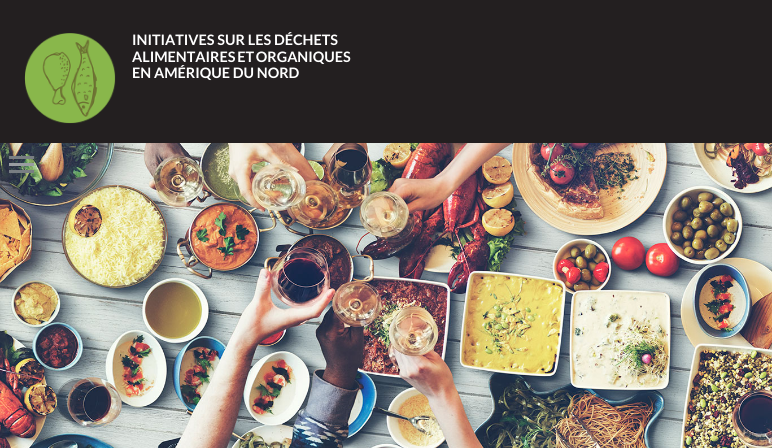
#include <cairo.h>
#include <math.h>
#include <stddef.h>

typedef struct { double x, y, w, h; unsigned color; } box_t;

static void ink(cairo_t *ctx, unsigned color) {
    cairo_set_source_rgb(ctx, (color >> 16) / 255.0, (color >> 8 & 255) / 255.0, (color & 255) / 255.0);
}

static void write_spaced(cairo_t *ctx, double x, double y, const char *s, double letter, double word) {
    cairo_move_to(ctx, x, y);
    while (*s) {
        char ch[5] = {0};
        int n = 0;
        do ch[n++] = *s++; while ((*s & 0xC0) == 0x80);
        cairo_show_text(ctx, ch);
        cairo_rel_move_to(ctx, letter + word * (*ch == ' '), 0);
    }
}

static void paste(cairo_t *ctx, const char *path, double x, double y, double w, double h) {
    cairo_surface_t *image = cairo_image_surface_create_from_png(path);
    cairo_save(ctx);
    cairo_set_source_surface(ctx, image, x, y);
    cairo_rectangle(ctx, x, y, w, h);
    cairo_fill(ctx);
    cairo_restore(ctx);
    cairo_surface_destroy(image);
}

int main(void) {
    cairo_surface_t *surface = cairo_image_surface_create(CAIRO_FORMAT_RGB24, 772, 448);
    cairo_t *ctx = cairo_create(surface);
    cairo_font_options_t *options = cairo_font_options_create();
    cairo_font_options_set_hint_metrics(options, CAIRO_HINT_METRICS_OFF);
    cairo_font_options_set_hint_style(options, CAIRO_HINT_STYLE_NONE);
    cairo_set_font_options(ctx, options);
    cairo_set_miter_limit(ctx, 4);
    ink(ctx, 0xFFFFFF);
    cairo_paint(ctx);
    ink(ctx, 0x231F20);
    cairo_rectangle(ctx, 0, 0, 772, 143);
    cairo_fill(ctx);
    paste(ctx, "media/1.png", 24, 33, 92, 91);
    cairo_select_font_face(ctx, "Lato", CAIRO_FONT_SLANT_NORMAL, CAIRO_FONT_WEIGHT_BOLD);
    cairo_set_font_size(ctx, 14.4);
    ink(ctx, 0xFFFFFF);
    cairo_move_to(ctx, 132, 45);
    cairo_show_text(ctx, "INITIATIVES SUR LES DÉCHETS");
    write_spaced(ctx, 132, 62, "ALIMENTAIRES ET ORGANIQUES", 0, -1);
    cairo_move_to(ctx, 132, 78);
    cairo_show_text(ctx, "EN AMÉRIQUE DU NORD");
    paste(ctx, "media/2.png", 0, 143, 772, 305);
    {
        static const box_t items[] = {
            {9, 156, 25, 3, 0x797E83},
            {9, 170, 25, 3, 0x797E83},
            {9, 163, 25, 3, 0x999DA1},
        };
        for (size_t i = 0; i < sizeof items / sizeof *items; i++) {
            ink(ctx, items[i].color);
            cairo_rectangle(ctx, items[i].x, items[i].y, items[i].w, items[i].h);
            cairo_fill(ctx);
        }
    }
    cairo_surface_write_to_png(surface, "image.png");
    cairo_font_options_destroy(options);
    cairo_destroy(ctx);
    cairo_surface_destroy(surface);
    return 0;
}
